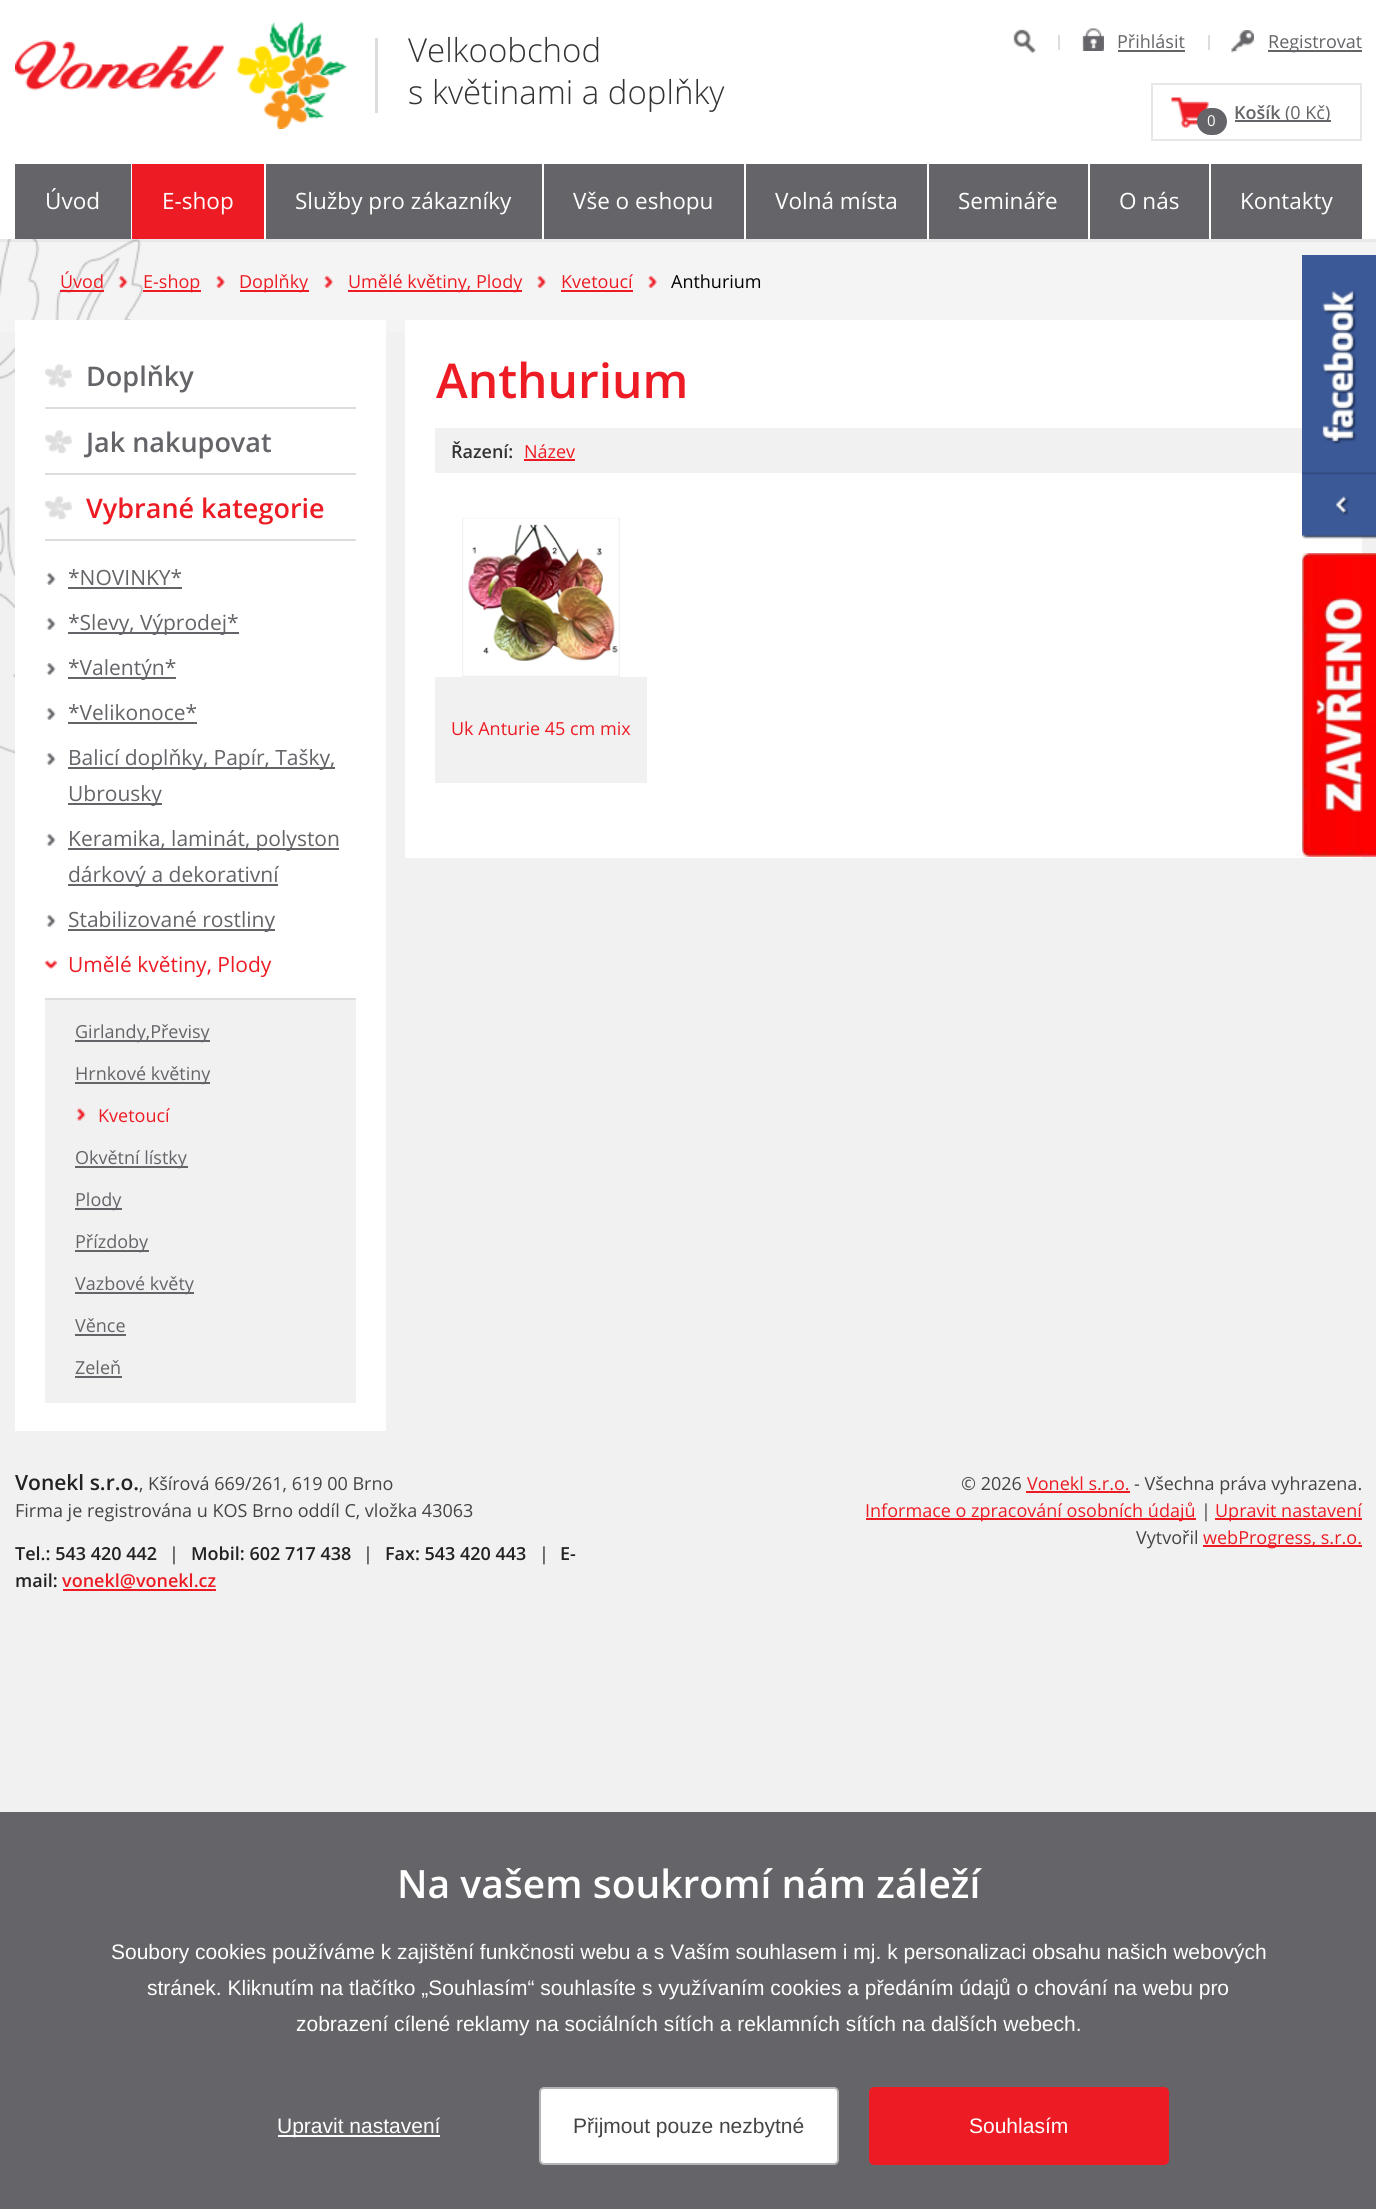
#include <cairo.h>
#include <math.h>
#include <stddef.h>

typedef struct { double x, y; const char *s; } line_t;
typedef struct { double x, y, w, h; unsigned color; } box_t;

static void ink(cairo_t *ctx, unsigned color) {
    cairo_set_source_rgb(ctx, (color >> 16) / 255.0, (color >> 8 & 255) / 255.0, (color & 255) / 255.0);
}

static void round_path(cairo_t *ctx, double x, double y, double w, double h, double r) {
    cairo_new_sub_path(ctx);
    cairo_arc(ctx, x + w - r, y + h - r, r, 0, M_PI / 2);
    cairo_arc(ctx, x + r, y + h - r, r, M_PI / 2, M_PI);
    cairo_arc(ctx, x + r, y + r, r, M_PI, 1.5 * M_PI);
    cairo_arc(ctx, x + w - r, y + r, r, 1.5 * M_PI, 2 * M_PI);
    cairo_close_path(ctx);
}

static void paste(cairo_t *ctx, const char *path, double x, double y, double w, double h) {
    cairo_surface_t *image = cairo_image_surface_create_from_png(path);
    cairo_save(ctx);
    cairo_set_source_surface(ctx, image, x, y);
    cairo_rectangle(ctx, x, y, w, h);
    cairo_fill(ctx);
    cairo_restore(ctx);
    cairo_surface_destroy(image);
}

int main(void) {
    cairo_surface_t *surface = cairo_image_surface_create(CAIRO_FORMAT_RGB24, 1376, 2209);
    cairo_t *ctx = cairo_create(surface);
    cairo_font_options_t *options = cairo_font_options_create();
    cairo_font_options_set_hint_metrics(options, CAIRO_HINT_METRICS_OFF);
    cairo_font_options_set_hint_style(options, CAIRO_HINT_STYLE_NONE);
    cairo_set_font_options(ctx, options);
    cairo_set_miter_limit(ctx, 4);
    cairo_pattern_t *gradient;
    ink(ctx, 0xF1F1F1);
    cairo_paint(ctx);
    gradient = cairo_pattern_create_linear(689, 238, 689, 804);
    cairo_pattern_add_color_stop_rgba(gradient, 0, 0.957, 0.957, 0.957, 1);
    cairo_pattern_add_color_stop_rgba(gradient, 1, 0.945, 0.945, 0.945, 1);
    cairo_set_source(ctx, gradient);
    cairo_pattern_destroy(gradient);
    cairo_rectangle(ctx, 0, 239, 1376, 93);
    cairo_fill(ctx);
    paste(ctx, "media/6.png", 0, 239, 144, 515);
    cairo_set_source_rgba(ctx, 0, 0, 0, 0.05);
    cairo_rectangle(ctx, 0, 239, 1376, 3);
    cairo_fill(ctx);
    ink(ctx, 0xFFFFFF);
    cairo_rectangle(ctx, 0, 0, 1376, 239);
    cairo_fill(ctx);
    paste(ctx, "media/1.png", 15, 22, 332, 107);
    ink(ctx, 0xDDDDDD);
    cairo_rectangle(ctx, 375, 38, 3, 75);
    cairo_fill(ctx);
    cairo_select_font_face(ctx, "Open Sans Light", CAIRO_FONT_SLANT_NORMAL, CAIRO_FONT_WEIGHT_NORMAL);
    cairo_set_font_size(ctx, 33);
    ink(ctx, 0x333333);
    cairo_move_to(ctx, 408, 62);
    cairo_show_text(ctx, "Velkoobchod");
    cairo_move_to(ctx, 408, 104);
    cairo_show_text(ctx, "s květinami a doplňky");
    paste(ctx, "media/2.png", 1013, 29, 23, 24);
    ink(ctx, 0xDDDDDD);
    cairo_rectangle(ctx, 1058, 35, 2, 15);
    cairo_fill(ctx);
    paste(ctx, "media/3.png", 1082, 28, 22, 23);
    cairo_select_font_face(ctx, "Open Sans", CAIRO_FONT_SLANT_NORMAL, CAIRO_FONT_WEIGHT_NORMAL);
    cairo_set_font_size(ctx, 18);
    ink(ctx, 0x646469);
    cairo_move_to(ctx, 1117, 48);
    cairo_show_text(ctx, "Přihlásit");
    cairo_rectangle(ctx, 1118, 50, 67, 2);
    cairo_fill(ctx);
    ink(ctx, 0xDDDDDD);
    cairo_rectangle(ctx, 1208, 35, 2, 15);
    cairo_fill(ctx);
    paste(ctx, "media/4.png", 1231, 30, 23, 23);
    ink(ctx, 0x646469);
    cairo_rectangle(ctx, 1268, 50, 94, 2);
    cairo_fill(ctx);
    cairo_move_to(ctx, 1268, 48);
    cairo_show_text(ctx, "Registrovat");
    cairo_rectangle(ctx, 1152, 84, 209, 56);
    ink(ctx, 0xE7E7E7);
    cairo_stroke(ctx);
    paste(ctx, "media/5.png", 1171, 97, 38, 31);
    ink(ctx, 0x646469);
    round_path(ctx, 1197, 108, 30, 27, 13.5);
    cairo_fill(ctx);
    cairo_set_font_size(ctx, 15);
    ink(ctx, 0xFFFFFF);
    cairo_move_to(ctx, 1207, 126);
    cairo_show_text(ctx, "0");
    cairo_select_font_face(ctx, "Open Sans SemiBold", CAIRO_FONT_SLANT_NORMAL, CAIRO_FONT_WEIGHT_NORMAL);
    cairo_set_font_size(ctx, 18);
    ink(ctx, 0x646469);
    cairo_move_to(ctx, 1234, 119);
    cairo_show_text(ctx, "Košík");
    cairo_rectangle(ctx, 1235, 120, 96, 2);
    cairo_fill(ctx);
    cairo_select_font_face(ctx, "Open Sans", CAIRO_FONT_SLANT_NORMAL, CAIRO_FONT_WEIGHT_NORMAL);
    cairo_move_to(ctx, 1285, 119);
    cairo_show_text(ctx, "(0 Kč)");
    cairo_rectangle(ctx, 15, 164, 1347, 75);
    cairo_fill(ctx);
    ink(ctx, 0xFFFFFF);
    cairo_rectangle(ctx, 131, 164, 1, 75);
    cairo_fill(ctx);
    cairo_set_font_size(ctx, 22.5);
    cairo_move_to(ctx, 45, 209);
    cairo_show_text(ctx, "Úvod");
    ink(ctx, 0xED1C24);
    cairo_rectangle(ctx, 132, 164, 132, 75);
    cairo_fill(ctx);
    ink(ctx, 0xFFFFFF);
    cairo_rectangle(ctx, 264, 164, 2, 75);
    cairo_fill(ctx);
    cairo_move_to(ctx, 162, 209);
    cairo_show_text(ctx, "E-shop");
    cairo_rectangle(ctx, 542, 164, 2, 75);
    cairo_fill(ctx);
    cairo_move_to(ctx, 295, 209);
    cairo_show_text(ctx, "Služby pro zákazníky");
    cairo_rectangle(ctx, 744, 164, 2, 75);
    cairo_fill(ctx);
    cairo_move_to(ctx, 573, 209);
    cairo_show_text(ctx, "Vše o eshopu");
    cairo_rectangle(ctx, 927, 164, 2, 75);
    cairo_fill(ctx);
    cairo_move_to(ctx, 775, 209);
    cairo_show_text(ctx, "Volná místa");
    cairo_rectangle(ctx, 1088, 164, 2, 75);
    cairo_fill(ctx);
    cairo_move_to(ctx, 958, 209);
    cairo_show_text(ctx, "Semináře");
    cairo_rectangle(ctx, 1209, 164, 2, 75);
    cairo_fill(ctx);
    cairo_move_to(ctx, 1119, 209);
    cairo_show_text(ctx, "O nás");
    cairo_move_to(ctx, 1240, 209);
    cairo_show_text(ctx, "Kontakty");
    cairo_set_font_size(ctx, 18);
    ink(ctx, 0xED1C24);
    cairo_move_to(ctx, 60, 288);
    cairo_show_text(ctx, "Úvod");
    cairo_rectangle(ctx, 60, 290, 44, 2);
    cairo_fill(ctx);
    paste(ctx, "media/7.png", 118, 276, 10, 12);
    cairo_rectangle(ctx, 143, 290, 58, 2);
    cairo_fill(ctx);
    cairo_move_to(ctx, 143, 288);
    cairo_show_text(ctx, "E-shop");
    paste(ctx, "media/8.png", 216, 276, 9, 12);
    cairo_rectangle(ctx, 240, 290, 69, 2);
    cairo_fill(ctx);
    cairo_move_to(ctx, 239, 288);
    cairo_show_text(ctx, "Doplňky");
    paste(ctx, "media/9.png", 324, 276, 9, 12);
    cairo_rectangle(ctx, 348, 290, 174, 2);
    cairo_fill(ctx);
    cairo_move_to(ctx, 348, 288);
    cairo_show_text(ctx, "Umělé květiny, Plody");
    paste(ctx, "media/8.png", 537, 276, 9, 12);
    cairo_move_to(ctx, 561, 288);
    cairo_show_text(ctx, "Kvetoucí");
    cairo_rectangle(ctx, 561, 290, 72, 2);
    cairo_fill(ctx);
    paste(ctx, "media/8.png", 648, 276, 9, 12);
    ink(ctx, 0x000000);
    cairo_move_to(ctx, 671, 288);
    cairo_show_text(ctx, "Anthurium");
    ink(ctx, 0xFFFFFF);
    cairo_rectangle(ctx, 15, 320, 371, 1111);
    cairo_fill(ctx);
    ink(ctx, 0xDDDDDD);
    cairo_rectangle(ctx, 45, 407, 311, 2);
    cairo_fill(ctx);
    paste(ctx, "media/10.png", 45, 364, 27, 24);
    cairo_select_font_face(ctx, "Open Sans SemiBold", CAIRO_FONT_SLANT_NORMAL, CAIRO_FONT_WEIGHT_NORMAL);
    cairo_set_font_size(ctx, 27);
    ink(ctx, 0x646469);
    cairo_move_to(ctx, 86, 386);
    cairo_show_text(ctx, "Doplňky");
    ink(ctx, 0xDDDDDD);
    cairo_rectangle(ctx, 45, 473, 311, 2);
    cairo_fill(ctx);
    paste(ctx, "media/10.png", 45, 430, 27, 24);
    ink(ctx, 0x646469);
    cairo_move_to(ctx, 86, 452);
    cairo_show_text(ctx, "Jak nakupovat");
    ink(ctx, 0xDDDDDD);
    cairo_rectangle(ctx, 45, 539, 311, 2);
    cairo_fill(ctx);
    paste(ctx, "media/10.png", 45, 496, 27, 24);
    ink(ctx, 0xED1C24);
    cairo_move_to(ctx, 86, 518);
    cairo_show_text(ctx, "Vybrané kategorie");
    paste(ctx, "media/11.png", 46, 573, 10, 12);
    cairo_select_font_face(ctx, "Open Sans", CAIRO_FONT_SLANT_NORMAL, CAIRO_FONT_WEIGHT_NORMAL);
    cairo_set_font_size(ctx, 21);
    ink(ctx, 0x646469);
    cairo_move_to(ctx, 68, 585);
    cairo_show_text(ctx, "*NOVINKY*");
    cairo_rectangle(ctx, 68, 587, 114, 2);
    cairo_fill(ctx);
    paste(ctx, "media/11.png", 46, 618, 10, 12);
    cairo_rectangle(ctx, 68, 632, 171, 2);
    cairo_fill(ctx);
    cairo_move_to(ctx, 68, 630);
    cairo_show_text(ctx, "*Slevy, Výprodej*");
    paste(ctx, "media/11.png", 46, 663, 10, 12);
    cairo_rectangle(ctx, 68, 677, 108, 2);
    cairo_fill(ctx);
    cairo_move_to(ctx, 68, 675);
    cairo_show_text(ctx, "*Valentýn*");
    paste(ctx, "media/11.png", 46, 708, 10, 12);
    cairo_move_to(ctx, 68, 720);
    cairo_show_text(ctx, "*Velikonoce*");
    cairo_rectangle(ctx, 68, 722, 129, 2);
    cairo_fill(ctx);
    paste(ctx, "media/11.png", 46, 753, 10, 12);
    cairo_rectangle(ctx, 68, 767, 267, 2);
    cairo_fill(ctx);
    cairo_move_to(ctx, 68, 765);
    cairo_show_text(ctx, "Balicí doplňky, Papír, Tašky,");
    cairo_rectangle(ctx, 68, 803, 94, 2);
    cairo_fill(ctx);
    cairo_move_to(ctx, 68, 801);
    cairo_show_text(ctx, "Ubrousky");
    paste(ctx, "media/11.png", 46, 834, 10, 12);
    cairo_rectangle(ctx, 68, 848, 271, 2);
    cairo_fill(ctx);
    cairo_move_to(ctx, 68, 846);
    cairo_show_text(ctx, "Keramika, laminát, polyston");
    cairo_rectangle(ctx, 68, 884, 210, 2);
    cairo_fill(ctx);
    cairo_move_to(ctx, 68, 882);
    cairo_show_text(ctx, "dárkový a dekorativní");
    paste(ctx, "media/11.png", 46, 915, 10, 12);
    cairo_rectangle(ctx, 68, 929, 207, 2);
    cairo_fill(ctx);
    cairo_move_to(ctx, 68, 927);
    cairo_show_text(ctx, "Stabilizované rostliny");
    paste(ctx, "media/12.png", 45, 960, 12, 9);
    ink(ctx, 0xED1C24);
    cairo_move_to(ctx, 68, 972);
    cairo_show_text(ctx, "Umělé květiny, Plody");
    {
        static const box_t items[] = {
            {45, 1000, 311, 403, 0xF1F1F1},
            {45, 998, 311, 2, 0xDDDDDD},
            {75, 1040, 135, 2, 0x646469},
        };
        for (size_t i = 0; i < sizeof items / sizeof *items; i++) {
            ink(ctx, items[i].color);
            cairo_rectangle(ctx, items[i].x, items[i].y, items[i].w, items[i].h);
            cairo_fill(ctx);
        }
    }
    cairo_set_font_size(ctx, 18);
    cairo_move_to(ctx, 75, 1038);
    cairo_show_text(ctx, "Girlandy,Převisy");
    cairo_rectangle(ctx, 75, 1082, 135, 2);
    cairo_fill(ctx);
    cairo_move_to(ctx, 75, 1080);
    cairo_show_text(ctx, "Hrnkové květiny");
    paste(ctx, "media/13.png", 76, 1108, 10, 13);
    ink(ctx, 0xED1C24);
    cairo_move_to(ctx, 98, 1122);
    cairo_show_text(ctx, "Kvetoucí");
    ink(ctx, 0x646469);
    cairo_rectangle(ctx, 75, 1166, 113, 2);
    cairo_fill(ctx);
    cairo_move_to(ctx, 75, 1164);
    cairo_show_text(ctx, "Okvětní lístky");
    cairo_rectangle(ctx, 75, 1208, 47, 2);
    cairo_fill(ctx);
    cairo_move_to(ctx, 75, 1206);
    cairo_show_text(ctx, "Plody");
    cairo_rectangle(ctx, 75, 1250, 74, 2);
    cairo_fill(ctx);
    cairo_move_to(ctx, 75, 1248);
    cairo_show_text(ctx, "Přízdoby");
    cairo_rectangle(ctx, 75, 1292, 119, 2);
    cairo_fill(ctx);
    cairo_move_to(ctx, 75, 1290);
    cairo_show_text(ctx, "Vazbové květy");
    cairo_move_to(ctx, 75, 1332);
    cairo_show_text(ctx, "Věnce");
    cairo_rectangle(ctx, 75, 1334, 51, 2);
    cairo_fill(ctx);
    cairo_move_to(ctx, 75, 1374);
    cairo_show_text(ctx, "Zeleň");
    cairo_rectangle(ctx, 75, 1376, 47, 2);
    cairo_fill(ctx);
    ink(ctx, 0xFFFFFF);
    cairo_rectangle(ctx, 405, 320, 957, 538);
    cairo_fill(ctx);
    cairo_select_font_face(ctx, "Open Sans SemiBold", CAIRO_FONT_SLANT_NORMAL, CAIRO_FONT_WEIGHT_NORMAL);
    cairo_set_font_size(ctx, 48);
    ink(ctx, 0xED1C24);
    cairo_move_to(ctx, 436, 398);
    cairo_show_text(ctx, "Anthurium");
    ink(ctx, 0xF1F1F1);
    cairo_rectangle(ctx, 435, 428, 867, 45);
    cairo_fill(ctx);
    cairo_set_font_size(ctx, 18);
    ink(ctx, 0x333333);
    cairo_move_to(ctx, 451, 458);
    cairo_show_text(ctx, "Řazení:");
    cairo_select_font_face(ctx, "Open Sans", CAIRO_FONT_SLANT_NORMAL, CAIRO_FONT_WEIGHT_NORMAL);
    ink(ctx, 0xED1C24);
    cairo_move_to(ctx, 524, 458);
    cairo_show_text(ctx, "Název");
    {
        static const box_t items[] = {
            {524, 459, 51, 2, 0xED1C24},
            {435, 677, 212, 106, 0xF1F1F1},
            {462, 518, 158, 159, 0xF1F1F1},
        };
        for (size_t i = 0; i < sizeof items / sizeof *items; i++) {
            ink(ctx, items[i].color);
            cairo_rectangle(ctx, items[i].x, items[i].y, items[i].w, items[i].h);
            cairo_fill(ctx);
        }
    }
    paste(ctx, "media/14.png", 462, 517, 157, 159);
    ink(ctx, 0xED1C24);
    cairo_move_to(ctx, 451, 735);
    cairo_show_text(ctx, "Uk Anturie 45 cm mix");
    paste(ctx, "media/15.png", 1302, 255, 74, 284);
    paste(ctx, "media/16.png", 1302, 553, 74, 304);
    paste(ctx, "media/17.png", 1302, 553, 74, 304);
    cairo_select_font_face(ctx, "Open Sans SemiBold", CAIRO_FONT_SLANT_NORMAL, CAIRO_FONT_WEIGHT_NORMAL);
    cairo_set_font_size(ctx, 21);
    ink(ctx, 0x222222);
    cairo_move_to(ctx, 15, 1490);
    cairo_show_text(ctx, "Vonekl s.r.o.");
    cairo_select_font_face(ctx, "Open Sans", CAIRO_FONT_SLANT_NORMAL, CAIRO_FONT_WEIGHT_NORMAL);
    cairo_set_font_size(ctx, 18);
    ink(ctx, 0x444444);
    cairo_move_to(ctx, 139, 1490);
    cairo_show_text(ctx, ", Kšírová 669/261, 619 00 Brno");
    cairo_move_to(ctx, 15, 1517);
    cairo_show_text(ctx, "Firma je registrována u KOS Brno oddíl C, vložka 43063");
    cairo_select_font_face(ctx, "Open Sans SemiBold", CAIRO_FONT_SLANT_NORMAL, CAIRO_FONT_WEIGHT_NORMAL);
    ink(ctx, 0x222222);
    cairo_move_to(ctx, 15, 1560);
    cairo_show_text(ctx, "Tel.: 543 420 442");
    cairo_select_font_face(ctx, "Open Sans", CAIRO_FONT_SLANT_NORMAL, CAIRO_FONT_WEIGHT_NORMAL);
    cairo_move_to(ctx, 169, 1560);
    cairo_show_text(ctx, "|");
    cairo_select_font_face(ctx, "Open Sans SemiBold", CAIRO_FONT_SLANT_NORMAL, CAIRO_FONT_WEIGHT_NORMAL);
    cairo_move_to(ctx, 191, 1560);
    cairo_show_text(ctx, "Mobil: 602 717 438");
    cairo_select_font_face(ctx, "Open Sans", CAIRO_FONT_SLANT_NORMAL, CAIRO_FONT_WEIGHT_NORMAL);
    cairo_move_to(ctx, 363, 1560);
    cairo_show_text(ctx, "|");
    cairo_select_font_face(ctx, "Open Sans SemiBold", CAIRO_FONT_SLANT_NORMAL, CAIRO_FONT_WEIGHT_NORMAL);
    cairo_move_to(ctx, 385, 1560);
    cairo_show_text(ctx, "Fax: 543 420 443");
    cairo_select_font_face(ctx, "Open Sans", CAIRO_FONT_SLANT_NORMAL, CAIRO_FONT_WEIGHT_NORMAL);
    cairo_move_to(ctx, 539, 1560);
    cairo_show_text(ctx, "|");
    cairo_select_font_face(ctx, "Open Sans SemiBold", CAIRO_FONT_SLANT_NORMAL, CAIRO_FONT_WEIGHT_NORMAL);
    cairo_move_to(ctx, 560, 1560);
    cairo_show_text(ctx, "E-");
    cairo_move_to(ctx, 15, 1587);
    cairo_show_text(ctx, "mail:");
    ink(ctx, 0xED1C24);
    cairo_move_to(ctx, 62, 1587);
    cairo_show_text(ctx, "vonekl@vonekl.cz");
    cairo_rectangle(ctx, 63, 1589, 153, 2);
    cairo_fill(ctx);
    cairo_select_font_face(ctx, "Open Sans", CAIRO_FONT_SLANT_NORMAL, CAIRO_FONT_WEIGHT_NORMAL);
    ink(ctx, 0x444444);
    cairo_move_to(ctx, 961, 1490);
    cairo_show_text(ctx, "© 2026");
    ink(ctx, 0xED1C24);
    cairo_move_to(ctx, 1027, 1490);
    cairo_show_text(ctx, "Vonekl s.r.o.");
    cairo_rectangle(ctx, 1026, 1491, 104, 2);
    cairo_fill(ctx);
    ink(ctx, 0x444444);
    cairo_move_to(ctx, 1134, 1490);
    cairo_show_text(ctx, "- Všechna práva vyhrazena.");
    ink(ctx, 0xED1C24);
    cairo_rectangle(ctx, 866, 1518, 330, 2);
    cairo_fill(ctx);
    cairo_move_to(ctx, 865, 1517);
    cairo_show_text(ctx, "Informace o zpracování osobních údajů");
    ink(ctx, 0x444444);
    cairo_move_to(ctx, 1201, 1517);
    cairo_show_text(ctx, "|");
    ink(ctx, 0xED1C24);
    cairo_rectangle(ctx, 1215, 1518, 147, 2);
    cairo_fill(ctx);
    cairo_move_to(ctx, 1215, 1517);
    cairo_show_text(ctx, "Upravit nastavení");
    ink(ctx, 0x444444);
    cairo_move_to(ctx, 1136, 1544);
    cairo_show_text(ctx, "Vytvořil");
    ink(ctx, 0xED1C24);
    cairo_rectangle(ctx, 1203, 1545, 159, 2);
    cairo_fill(ctx);
    cairo_move_to(ctx, 1203, 1544);
    cairo_show_text(ctx, "webProgress, s.r.o.");
    ink(ctx, 0x646469);
    cairo_rectangle(ctx, 0, 1812, 1376, 397);
    cairo_fill(ctx);
    cairo_select_font_face(ctx, "Open Sans SemiBold", CAIRO_FONT_SLANT_NORMAL, CAIRO_FONT_WEIGHT_NORMAL);
    cairo_set_font_size(ctx, 39);
    ink(ctx, 0xFFFFFF);
    cairo_move_to(ctx, 397, 1898);
    cairo_show_text(ctx, "Na vašem soukromí nám záleží");
    cairo_select_font_face(ctx, "Liberation Sans", CAIRO_FONT_SLANT_NORMAL, CAIRO_FONT_WEIGHT_NORMAL);
    cairo_set_font_size(ctx, 21);
    {
        static const line_t items[] = {
            {111, 1959, "Soubory cookies používáme k zajištění funkčnosti webu a s Vaším souhlasem i mj. k personalizaci obsahu našich webových"},
            {147, 1995, "stránek. Kliknutím na tlačítko „Souhlasím“ souhlasíte s využívaním cookies a předáním údajů o chování na webu pro"},
            {296, 2031, "zobrazení cílené reklamy na sociálních sítích a reklamních sítích na dalších webech."},
        };
        for (size_t i = 0; i < sizeof items / sizeof *items; i++) {
            cairo_move_to(ctx, items[i].x, items[i].y);
            cairo_show_text(ctx, items[i].s);
        }
    }
    cairo_rectangle(ctx, 278, 2135, 162, 2);
    cairo_fill(ctx);
    cairo_move_to(ctx, 277, 2133);
    cairo_show_text(ctx, "Upravit nastavení");
    round_path(ctx, 540, 2088, 298, 76, 4);
    cairo_fill_preserve(ctx);
    ink(ctx, 0xB4B4B4);
    cairo_stroke(ctx);
    ink(ctx, 0x444444);
    cairo_move_to(ctx, 573, 2133);
    cairo_show_text(ctx, "Přijmout pouze nezbytné");
    ink(ctx, 0xED1C24);
    round_path(ctx, 870, 2088, 298, 76, 4);
    cairo_fill_preserve(ctx);
    cairo_stroke(ctx);
    ink(ctx, 0xFFFFFF);
    cairo_move_to(ctx, 969, 2133);
    cairo_show_text(ctx, "Souhlasím");
    cairo_surface_write_to_png(surface, "image.png");
    cairo_font_options_destroy(options);
    cairo_destroy(ctx);
    cairo_surface_destroy(surface);
    return 0;
}
